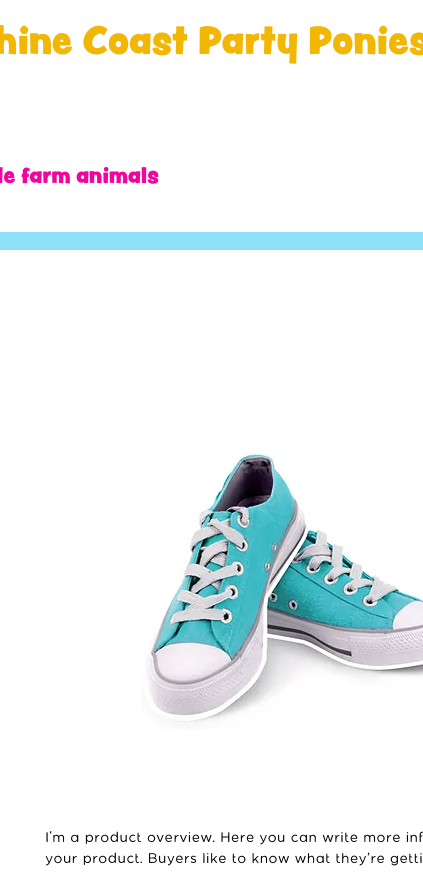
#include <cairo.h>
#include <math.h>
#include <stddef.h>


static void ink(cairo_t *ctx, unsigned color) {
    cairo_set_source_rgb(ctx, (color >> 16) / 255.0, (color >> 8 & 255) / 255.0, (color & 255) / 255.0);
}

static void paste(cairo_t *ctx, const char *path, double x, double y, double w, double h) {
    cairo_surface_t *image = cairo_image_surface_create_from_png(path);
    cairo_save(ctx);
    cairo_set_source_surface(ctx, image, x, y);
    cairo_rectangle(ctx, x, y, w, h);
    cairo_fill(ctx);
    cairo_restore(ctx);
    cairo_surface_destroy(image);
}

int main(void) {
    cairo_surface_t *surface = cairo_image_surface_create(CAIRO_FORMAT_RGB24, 423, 879);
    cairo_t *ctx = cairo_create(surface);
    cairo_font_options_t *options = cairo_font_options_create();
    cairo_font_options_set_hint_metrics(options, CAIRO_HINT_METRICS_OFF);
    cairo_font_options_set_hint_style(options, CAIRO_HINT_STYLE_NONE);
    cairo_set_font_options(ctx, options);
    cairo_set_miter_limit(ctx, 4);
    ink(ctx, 0x8FE0F9);
    cairo_paint(ctx);
    ink(ctx, 0xFFFFFF);
    cairo_rectangle(ctx, 0, 0, 423, 232);
    cairo_fill(ctx);
    cairo_select_font_face(ctx, "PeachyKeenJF", CAIRO_FONT_SLANT_NORMAL, CAIRO_FONT_WEIGHT_NORMAL);
    cairo_set_font_size(ctx, 35);
    ink(ctx, 0xF2B705);
    cairo_move_to(ctx, -5, 54);
    cairo_show_text(ctx, "hine Coast Party Ponies");
    cairo_set_font_size(ctx, 20);
    ink(ctx, 0xF2059F);
    cairo_move_to(ctx, -3, 183);
    cairo_show_text(ctx, "le farm animals");
    ink(ctx, 0xFFFFFF);
    cairo_rectangle(ctx, 0, 250, 423, 629);
    cairo_fill(ctx);
    paste(ctx, "media/1.png", 141, 450, 282, 280);
    cairo_select_font_face(ctx, "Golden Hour", CAIRO_FONT_SLANT_NORMAL, CAIRO_FONT_WEIGHT_NORMAL);
    cairo_set_font_size(ctx, 14);
    ink(ctx, 0x000000);
    cairo_move_to(ctx, 45, 842);
    cairo_show_text(ctx, "I'm a product overview. Here you can write more inf");
    cairo_move_to(ctx, 45, 863);
    cairo_show_text(ctx, "your product. Buyers like to know what they’re getti");
    cairo_surface_write_to_png(surface, "image.png");
    cairo_font_options_destroy(options);
    cairo_destroy(ctx);
    cairo_surface_destroy(surface);
    return 0;
}
